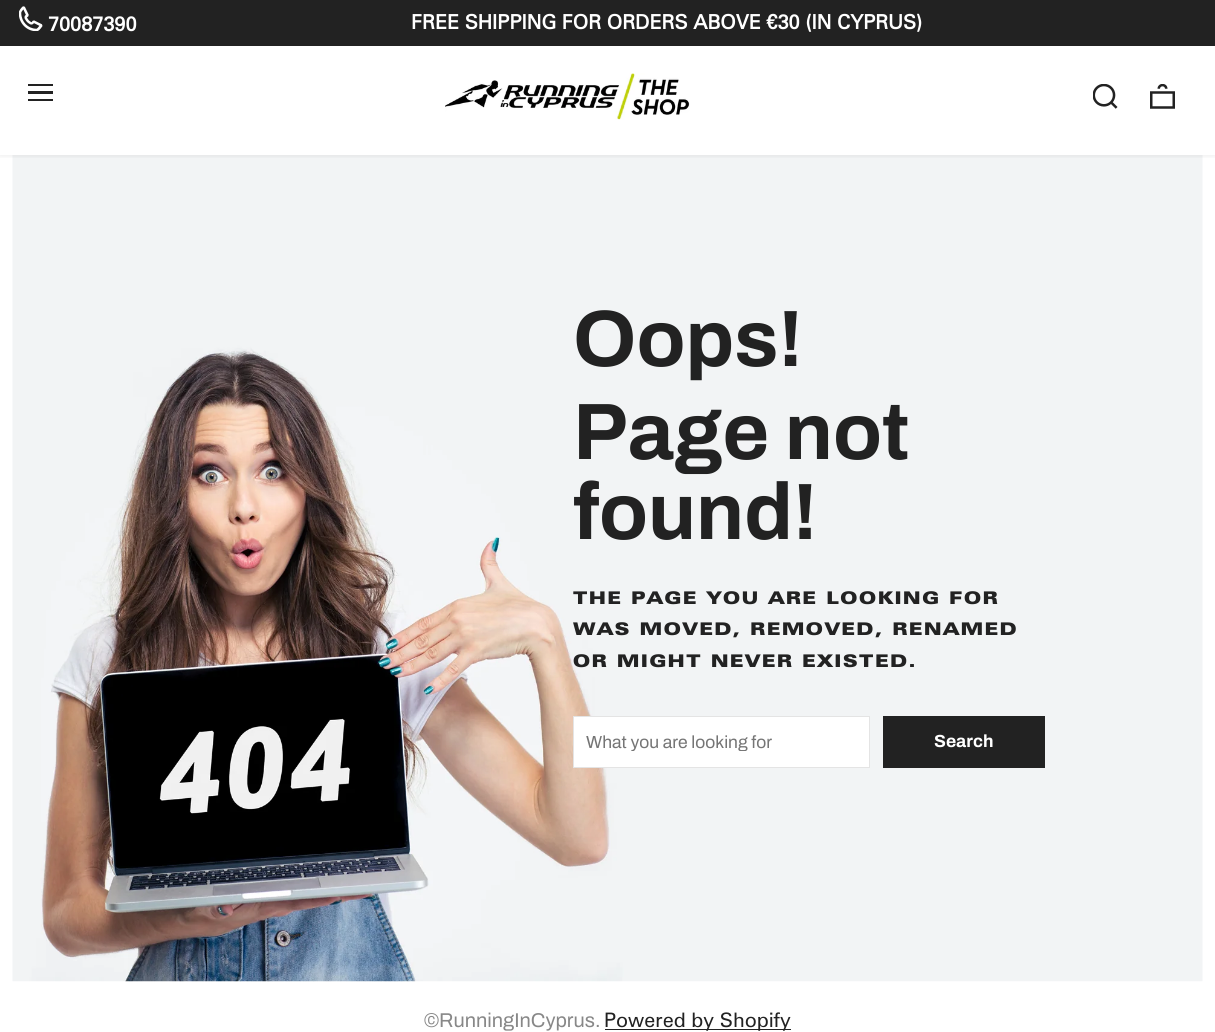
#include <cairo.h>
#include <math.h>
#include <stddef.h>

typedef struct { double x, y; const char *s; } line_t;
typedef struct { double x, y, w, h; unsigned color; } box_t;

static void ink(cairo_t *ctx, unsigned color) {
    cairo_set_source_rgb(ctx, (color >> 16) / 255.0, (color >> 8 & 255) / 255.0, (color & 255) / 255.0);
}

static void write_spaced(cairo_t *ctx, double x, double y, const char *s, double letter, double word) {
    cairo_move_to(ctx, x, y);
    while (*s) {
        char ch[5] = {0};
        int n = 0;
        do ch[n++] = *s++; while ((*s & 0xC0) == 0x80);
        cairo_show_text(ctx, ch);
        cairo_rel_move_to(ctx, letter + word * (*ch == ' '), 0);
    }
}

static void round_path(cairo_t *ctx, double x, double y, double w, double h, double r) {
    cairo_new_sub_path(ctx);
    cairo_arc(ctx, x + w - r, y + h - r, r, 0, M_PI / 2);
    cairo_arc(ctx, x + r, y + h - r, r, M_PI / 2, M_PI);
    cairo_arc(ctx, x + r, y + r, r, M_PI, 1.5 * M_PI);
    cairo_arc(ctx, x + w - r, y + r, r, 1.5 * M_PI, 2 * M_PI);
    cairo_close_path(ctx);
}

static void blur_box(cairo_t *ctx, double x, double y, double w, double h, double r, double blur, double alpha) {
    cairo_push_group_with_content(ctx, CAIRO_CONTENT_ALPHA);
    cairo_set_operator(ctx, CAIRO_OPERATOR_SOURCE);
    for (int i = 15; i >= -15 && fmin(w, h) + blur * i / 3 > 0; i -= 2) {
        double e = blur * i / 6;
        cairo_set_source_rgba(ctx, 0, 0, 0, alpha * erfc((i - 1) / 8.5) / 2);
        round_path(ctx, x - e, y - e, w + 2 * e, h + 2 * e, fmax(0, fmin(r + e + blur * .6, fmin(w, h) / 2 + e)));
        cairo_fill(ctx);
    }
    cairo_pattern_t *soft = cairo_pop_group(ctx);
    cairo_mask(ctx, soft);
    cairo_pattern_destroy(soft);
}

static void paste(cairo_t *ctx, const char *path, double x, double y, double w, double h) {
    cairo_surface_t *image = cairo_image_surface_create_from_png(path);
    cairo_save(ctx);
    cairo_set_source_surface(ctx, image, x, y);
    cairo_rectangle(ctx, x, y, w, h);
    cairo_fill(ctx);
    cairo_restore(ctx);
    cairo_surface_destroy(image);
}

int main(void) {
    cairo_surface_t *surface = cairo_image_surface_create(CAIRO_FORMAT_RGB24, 1215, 1032);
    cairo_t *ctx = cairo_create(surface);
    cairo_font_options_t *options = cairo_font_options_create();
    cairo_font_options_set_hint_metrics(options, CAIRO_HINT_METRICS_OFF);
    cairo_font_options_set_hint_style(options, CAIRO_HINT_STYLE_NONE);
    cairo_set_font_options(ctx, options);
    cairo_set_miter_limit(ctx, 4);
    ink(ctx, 0xFFFFFF);
    cairo_paint(ctx);
    paste(ctx, "media/5.png", 12, 155, 1191, 827);
    cairo_save(ctx);
    cairo_rectangle(ctx, 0, 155, 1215, 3);
    cairo_clip(ctx);
    ink(ctx, 0x000000);
    blur_box(ctx, 0, 0, 1215, 155, 0, 3, 0.1);
    cairo_restore(ctx);
    ink(ctx, 0x222222);
    cairo_rectangle(ctx, 0, 0, 1215, 46);
    cairo_fill(ctx);
    paste(ctx, "media/1.png", 19, 6, 24, 25);
    cairo_select_font_face(ctx, "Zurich", CAIRO_FONT_SLANT_NORMAL, CAIRO_FONT_WEIGHT_BOLD);
    cairo_set_font_size(ctx, 20);
    ink(ctx, 0xFFFFFF);
    cairo_move_to(ctx, 48, 31);
    cairo_show_text(ctx, "70087390");
    cairo_move_to(ctx, 411, 29);
    cairo_show_text(ctx, "FREE SHIPPING FOR ORDERS ABOVE €30 (IN CYPRUS)");
    {
        static const box_t items[] = {
            {28, 84, 25, 2, 0x222222},
            {28, 91, 25, 3, 0x222222},
            {28, 99, 25, 2, 0x222222},
        };
        for (size_t i = 0; i < sizeof items / sizeof *items; i++) {
            ink(ctx, items[i].color);
            cairo_rectangle(ctx, items[i].x, items[i].y, items[i].w, items[i].h);
            cairo_fill(ctx);
        }
    }
    paste(ctx, "media/2.png", 445, 73, 245, 47);
    paste(ctx, "media/3.png", 1093, 84, 25, 25);
    paste(ctx, "media/4.png", 1150, 84, 25, 25);
    cairo_select_font_face(ctx, "Archivo", CAIRO_FONT_SLANT_NORMAL, CAIRO_FONT_WEIGHT_BOLD);
    cairo_set_font_size(ctx, 80);
    {
        static const line_t items[] = {
            {573, 366, "Oops!"},
            {573, 459, "Page not"},
            {573, 539, "found!"},
        };
        for (size_t i = 0; i < sizeof items / sizeof *items; i++) {
            cairo_move_to(ctx, items[i].x, items[i].y);
            cairo_show_text(ctx, items[i].s);
        }
    }
    cairo_select_font_face(ctx, "Zurich ExtraBold", CAIRO_FONT_SLANT_NORMAL, CAIRO_FONT_WEIGHT_NORMAL);
    cairo_set_font_size(ctx, 17.5);
    {
        static const line_t items[] = {
            {573, 604, "THE PAGE YOU ARE LOOKING FOR"},
            {573, 635, "WAS MOVED, REMOVED, RENAMED"},
            {573, 667, "OR MIGHT NEVER EXISTED."},
        };
        for (size_t i = 0; i < sizeof items / sizeof *items; i++) {
            write_spaced(ctx, items[i].x, items[i].y, items[i].s, 1.75, 0);
        }
    }
    ink(ctx, 0xFFFFFF);
    cairo_rectangle(ctx, 573.5, 716.5, 296, 51);
    cairo_fill_preserve(ctx);
    ink(ctx, 0xE4E4E4);
    cairo_set_line_width(ctx, 1);
    cairo_stroke(ctx);
    cairo_save(ctx);
    cairo_rectangle(ctx, 586, 733, 270, 18);
    cairo_clip(ctx);
    cairo_select_font_face(ctx, "Archivo", CAIRO_FONT_SLANT_NORMAL, CAIRO_FONT_WEIGHT_NORMAL);
    ink(ctx, 0x757575);
    cairo_move_to(ctx, 586, 748);
    cairo_show_text(ctx, "What you are looking for");
    cairo_restore(ctx);
    ink(ctx, 0x222222);
    cairo_rectangle(ctx, 883, 716, 162, 52);
    cairo_fill(ctx);
    cairo_select_font_face(ctx, "Archivo", CAIRO_FONT_SLANT_NORMAL, CAIRO_FONT_WEIGHT_BOLD);
    ink(ctx, 0xFFFFFF);
    cairo_move_to(ctx, 934, 747);
    cairo_show_text(ctx, "Search");
    cairo_select_font_face(ctx, "Archivo", CAIRO_FONT_SLANT_NORMAL, CAIRO_FONT_WEIGHT_NORMAL);
    cairo_set_font_size(ctx, 20);
    ink(ctx, 0x888888);
    cairo_move_to(ctx, 424, 1027);
    cairo_show_text(ctx, "©RunningInCyprus.");
    ink(ctx, 0x222222);
    cairo_rectangle(ctx, 605, 1029, 186, 1);
    cairo_fill(ctx);
    cairo_select_font_face(ctx, "Zurich", CAIRO_FONT_SLANT_NORMAL, CAIRO_FONT_WEIGHT_NORMAL);
    cairo_move_to(ctx, 604, 1027);
    cairo_show_text(ctx, "Powered by Shopify");
    cairo_surface_write_to_png(surface, "image.png");
    cairo_font_options_destroy(options);
    cairo_destroy(ctx);
    cairo_surface_destroy(surface);
    return 0;
}
